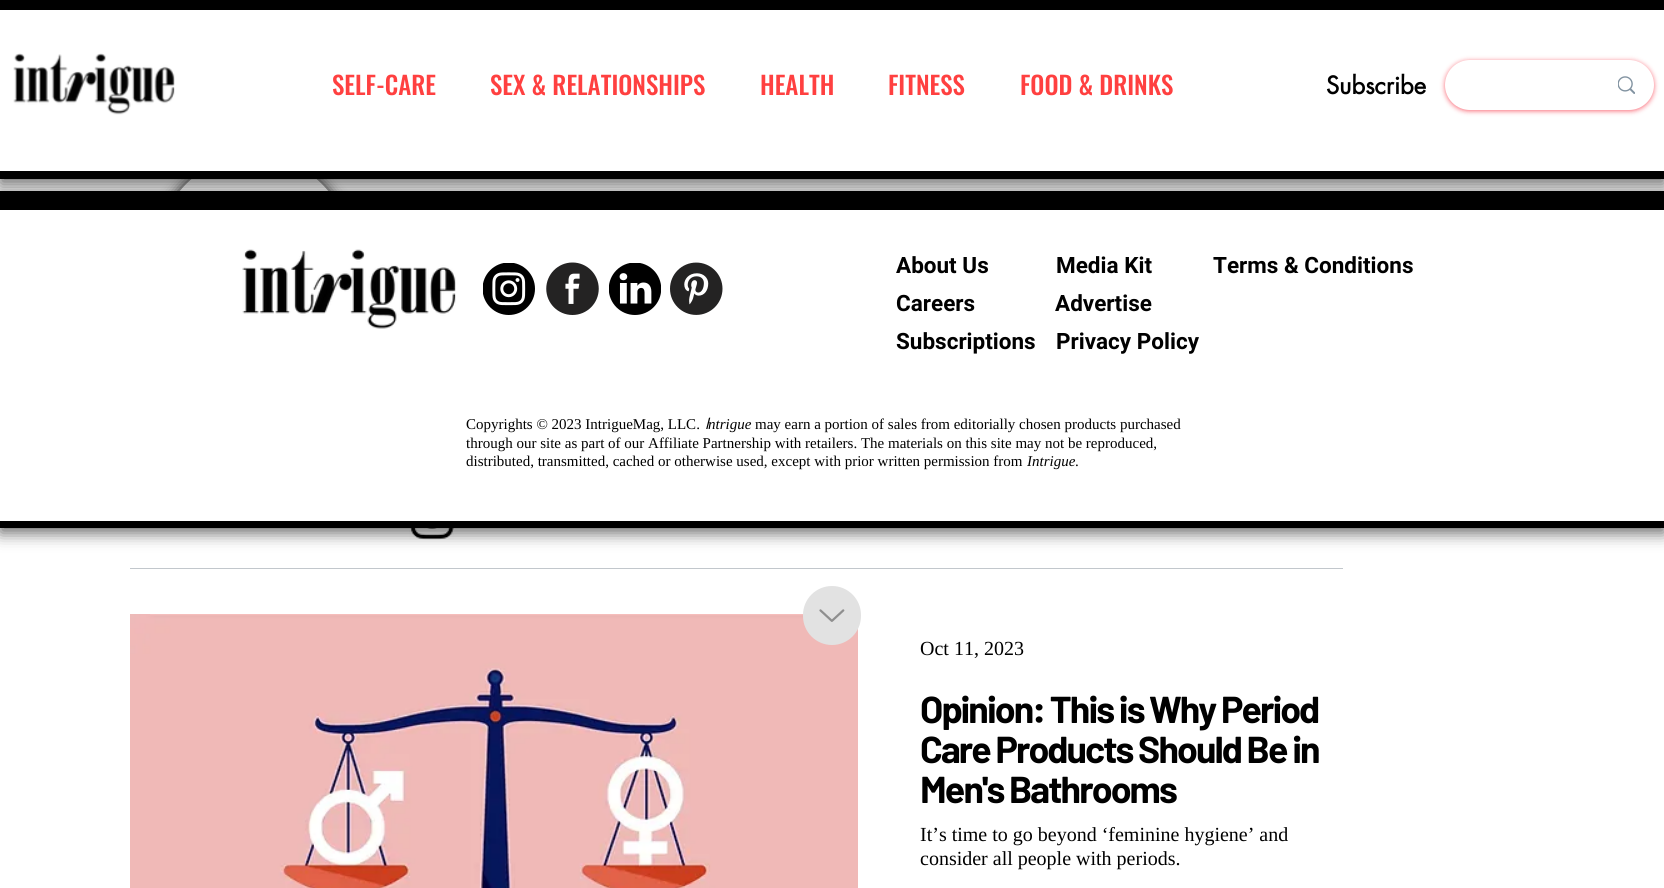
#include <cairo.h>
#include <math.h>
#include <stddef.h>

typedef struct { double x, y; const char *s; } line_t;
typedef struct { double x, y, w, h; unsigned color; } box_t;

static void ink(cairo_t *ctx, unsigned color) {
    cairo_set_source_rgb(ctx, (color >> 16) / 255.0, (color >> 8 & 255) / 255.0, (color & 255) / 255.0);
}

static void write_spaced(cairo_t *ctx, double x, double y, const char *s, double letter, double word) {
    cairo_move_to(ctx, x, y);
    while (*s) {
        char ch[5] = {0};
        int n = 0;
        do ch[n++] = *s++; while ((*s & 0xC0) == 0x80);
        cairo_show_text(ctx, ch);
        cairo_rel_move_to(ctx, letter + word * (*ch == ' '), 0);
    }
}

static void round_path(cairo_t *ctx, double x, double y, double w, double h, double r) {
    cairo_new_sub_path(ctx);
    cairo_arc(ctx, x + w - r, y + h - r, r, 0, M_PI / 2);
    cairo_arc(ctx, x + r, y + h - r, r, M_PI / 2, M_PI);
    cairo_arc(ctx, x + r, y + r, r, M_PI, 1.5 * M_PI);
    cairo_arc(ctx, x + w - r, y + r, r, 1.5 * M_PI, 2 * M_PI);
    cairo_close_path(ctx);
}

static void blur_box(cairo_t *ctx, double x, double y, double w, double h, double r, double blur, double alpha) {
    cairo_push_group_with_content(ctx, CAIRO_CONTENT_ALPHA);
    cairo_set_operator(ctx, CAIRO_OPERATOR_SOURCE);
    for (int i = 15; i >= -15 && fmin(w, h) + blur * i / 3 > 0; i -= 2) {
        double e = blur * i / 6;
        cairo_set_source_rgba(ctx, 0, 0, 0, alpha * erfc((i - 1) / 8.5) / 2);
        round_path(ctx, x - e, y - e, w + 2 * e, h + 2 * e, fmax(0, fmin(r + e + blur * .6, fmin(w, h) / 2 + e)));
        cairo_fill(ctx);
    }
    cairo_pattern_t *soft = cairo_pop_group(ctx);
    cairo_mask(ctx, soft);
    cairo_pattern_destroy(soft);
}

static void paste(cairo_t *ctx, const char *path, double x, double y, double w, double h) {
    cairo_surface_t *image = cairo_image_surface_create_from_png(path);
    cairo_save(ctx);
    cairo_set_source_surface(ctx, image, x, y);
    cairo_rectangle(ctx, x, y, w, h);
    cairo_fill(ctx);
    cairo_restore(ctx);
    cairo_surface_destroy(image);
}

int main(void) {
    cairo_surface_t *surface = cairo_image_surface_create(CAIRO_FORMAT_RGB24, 1664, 888);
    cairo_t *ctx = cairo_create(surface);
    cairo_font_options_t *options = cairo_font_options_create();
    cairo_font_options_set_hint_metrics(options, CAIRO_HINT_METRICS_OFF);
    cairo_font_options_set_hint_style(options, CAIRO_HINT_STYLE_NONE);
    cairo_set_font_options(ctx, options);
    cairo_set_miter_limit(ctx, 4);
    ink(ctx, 0xFFFFFF);
    cairo_paint(ctx);
    paste(ctx, "media/8.png", 409, 528, 45, 12);
    ink(ctx, 0x000000);
    blur_box(ctx, 0, 196, 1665, 337, 0, 8, 0.6);
    cairo_save(ctx);
    cairo_set_fill_rule(ctx, CAIRO_FILL_RULE_EVEN_ODD);
    cairo_new_path(ctx);
    cairo_move_to(ctx, 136, 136);
    cairo_line_to(ctx, 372, 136);
    cairo_line_to(ctx, 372, 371);
    cairo_line_to(ctx, 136, 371);
    cairo_close_path(ctx);
    cairo_move_to(ctx, 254, 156);
    cairo_curve_to(ctx, 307, 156, 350, 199, 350, 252);
    cairo_curve_to(ctx, 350, 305, 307, 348, 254, 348);
    cairo_curve_to(ctx, 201, 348, 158, 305, 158, 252);
    cairo_curve_to(ctx, 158, 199, 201, 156, 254, 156);
    cairo_close_path(ctx);
    cairo_clip(ctx);
    blur_box(ctx, 158, 158, 192, 191, 95.5, 7, 1);
    cairo_restore(ctx);
    ink(ctx, 0x000000);
    cairo_rectangle(ctx, 0, 191, 1664, 19);
    cairo_fill(ctx);
    ink(ctx, 0x000000);
    blur_box(ctx, 0, 5, 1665, 179, 0, 8, 0.6);
    {
        static const box_t items[] = {
            {0, 10, 1664, 161, 0xFFFFFF},
            {0, 0, 1664, 10, 0x000000},
            {0, 171, 1664, 8, 0x000000},
        };
        for (size_t i = 0; i < sizeof items / sizeof *items; i++) {
            ink(ctx, items[i].color);
            cairo_rectangle(ctx, items[i].x, items[i].y, items[i].w, items[i].h);
            cairo_fill(ctx);
        }
    }
    paste(ctx, "media/1.png", 13, 53, 162, 62);
    cairo_select_font_face(ctx, "Oswald Medium", CAIRO_FONT_SLANT_NORMAL, CAIRO_FONT_WEIGHT_NORMAL);
    cairo_set_font_size(ctx, 25);
    ink(ctx, 0xFF4040);
    {
        static const line_t items[] = {
            {332, 95, "SELF-CARE"},
            {490, 95, "SEX & RELATIONSHIPS"},
            {760, 95, "HEALTH"},
            {888, 95, "FITNESS"},
            {1020, 95, "FOOD & DRINKS"},
        };
        for (size_t i = 0; i < sizeof items / sizeof *items; i++) {
            cairo_move_to(ctx, items[i].x, items[i].y);
            cairo_show_text(ctx, items[i].s);
        }
    }
    cairo_select_font_face(ctx, "futura", CAIRO_FONT_SLANT_NORMAL, CAIRO_FONT_WEIGHT_BOLD);
    cairo_set_font_size(ctx, 23.75);
    ink(ctx, 0x000000);
    cairo_move_to(ctx, 1326, 94);
    cairo_show_text(ctx, "Subscribe");
    ink(ctx, 0xF60419);
    blur_box(ctx, 1445, 61, 209, 50, 25, 2.5, 0.6);
    ink(ctx, 0xFFFFFF);
    round_path(ctx, 1445, 60, 209, 50, 25);
    cairo_fill(ctx);
    paste(ctx, "media/2.png", 1618, 76, 17, 18);
    cairo_rectangle(ctx, 0, 210, 1664, 311);
    cairo_fill(ctx);
    ink(ctx, 0x000000);
    cairo_rectangle(ctx, 0, 521, 1664, 7);
    cairo_fill(ctx);
    paste(ctx, "media/3.png", 242, 249, 214, 80);
    paste(ctx, "media/4.png", 483, 263, 52, 52);
    paste(ctx, "media/5.png", 546, 262, 53, 53);
    paste(ctx, "media/6.png", 609, 263, 52, 52);
    paste(ctx, "media/7.png", 670, 262, 53, 53);
    cairo_select_font_face(ctx, "Roboto", CAIRO_FONT_SLANT_NORMAL, CAIRO_FONT_WEIGHT_BOLD);
    cairo_set_font_size(ctx, 22.5);
    {
        static const line_t items[] = {
            {896, 273, "About Us"},
            {1056, 273, "Media Kit"},
            {1213, 273, "Terms & Conditions"},
            {896, 311, "Careers"},
            {896, 349, "Subscriptions"},
            {1056, 349, "Privacy Policy"},
        };
        for (size_t i = 0; i < sizeof items / sizeof *items; i++) {
            cairo_move_to(ctx, items[i].x, items[i].y);
            cairo_show_text(ctx, items[i].s);
        }
    }
    cairo_select_font_face(ctx, "Liberation Serif", CAIRO_FONT_SLANT_NORMAL, CAIRO_FONT_WEIGHT_NORMAL);
    cairo_set_font_size(ctx, 15);
    cairo_move_to(ctx, 466, 429);
    cairo_show_text(ctx, "Copyrights © 2023 IntrigueMag, LLC.");
    cairo_select_font_face(ctx, "futura", CAIRO_FONT_SLANT_ITALIC, CAIRO_FONT_WEIGHT_NORMAL);
    cairo_move_to(ctx, 705, 429);
    cairo_show_text(ctx, "I");
    cairo_select_font_face(ctx, "Liberation Serif", CAIRO_FONT_SLANT_ITALIC, CAIRO_FONT_WEIGHT_NORMAL);
    cairo_move_to(ctx, 708, 429);
    cairo_show_text(ctx, "ntrigue");
    cairo_select_font_face(ctx, "Liberation Serif", CAIRO_FONT_SLANT_NORMAL, CAIRO_FONT_WEIGHT_NORMAL);
    {
        static const line_t items[] = {
            {755, 429, "may earn a portion of sales from editorially chosen products purchased"},
            {466, 448, "through our site as part of our Affiliate Partnership with retailers. The materials on this site may not be reproduced,"},
            {466, 466, "distributed, transmitted, cached or otherwise used, except with prior written permission from"},
        };
        for (size_t i = 0; i < sizeof items / sizeof *items; i++) {
            cairo_move_to(ctx, items[i].x, items[i].y);
            cairo_show_text(ctx, items[i].s);
        }
    }
    cairo_select_font_face(ctx, "Liberation Serif", CAIRO_FONT_SLANT_ITALIC, CAIRO_FONT_WEIGHT_NORMAL);
    cairo_move_to(ctx, 1027, 466);
    cairo_show_text(ctx, "Intrigue");
    cairo_select_font_face(ctx, "Liberation Serif", CAIRO_FONT_SLANT_NORMAL, CAIRO_FONT_WEIGHT_NORMAL);
    cairo_move_to(ctx, 1075, 466);
    cairo_show_text(ctx, ".");
    cairo_select_font_face(ctx, "Roboto", CAIRO_FONT_SLANT_NORMAL, CAIRO_FONT_WEIGHT_BOLD);
    cairo_set_font_size(ctx, 22.5);
    cairo_move_to(ctx, 1055, 311);
    cairo_show_text(ctx, "Advertise");
    ink(ctx, 0xC2C7CC);
    cairo_rectangle(ctx, 130, 568, 1213, 1);
    cairo_fill(ctx);
    paste(ctx, "media/10.png", 130, 614, 728, 274);
    ink(ctx, 0xE2E2E2);
    round_path(ctx, 803, 586, 58, 59, 29);
    cairo_fill(ctx);
    paste(ctx, "media/9.png", 819, 609, 26, 13);
    cairo_select_font_face(ctx, "Liberation Serif", CAIRO_FONT_SLANT_NORMAL, CAIRO_FONT_WEIGHT_NORMAL);
    cairo_set_font_size(ctx, 20);
    ink(ctx, 0x000000);
    cairo_move_to(ctx, 920, 655);
    cairo_show_text(ctx, "Oct 11, 2023");
    cairo_select_font_face(ctx, "Barlow", CAIRO_FONT_SLANT_NORMAL, CAIRO_FONT_WEIGHT_BOLD);
    cairo_set_font_size(ctx, 37.5);
    {
        static const line_t items[] = {
            {920, 723, "Opinion: This is Why Period"},
            {920, 763, "Care Products Should Be in"},
            {920, 803, "Men's Bathrooms"},
        };
        for (size_t i = 0; i < sizeof items / sizeof *items; i++) {
            write_spaced(ctx, items[i].x, items[i].y, items[i].s, -1.9, 0);
        }
    }
    cairo_select_font_face(ctx, "Liberation Serif", CAIRO_FONT_SLANT_NORMAL, CAIRO_FONT_WEIGHT_NORMAL);
    cairo_set_font_size(ctx, 20);
    cairo_move_to(ctx, 920, 841);
    cairo_show_text(ctx, "It’s time to go beyond ‘feminine hygiene’ and");
    cairo_move_to(ctx, 920, 865);
    cairo_show_text(ctx, "consider all people with periods.");
    cairo_surface_write_to_png(surface, "image.png");
    cairo_font_options_destroy(options);
    cairo_destroy(ctx);
    cairo_surface_destroy(surface);
    return 0;
}
